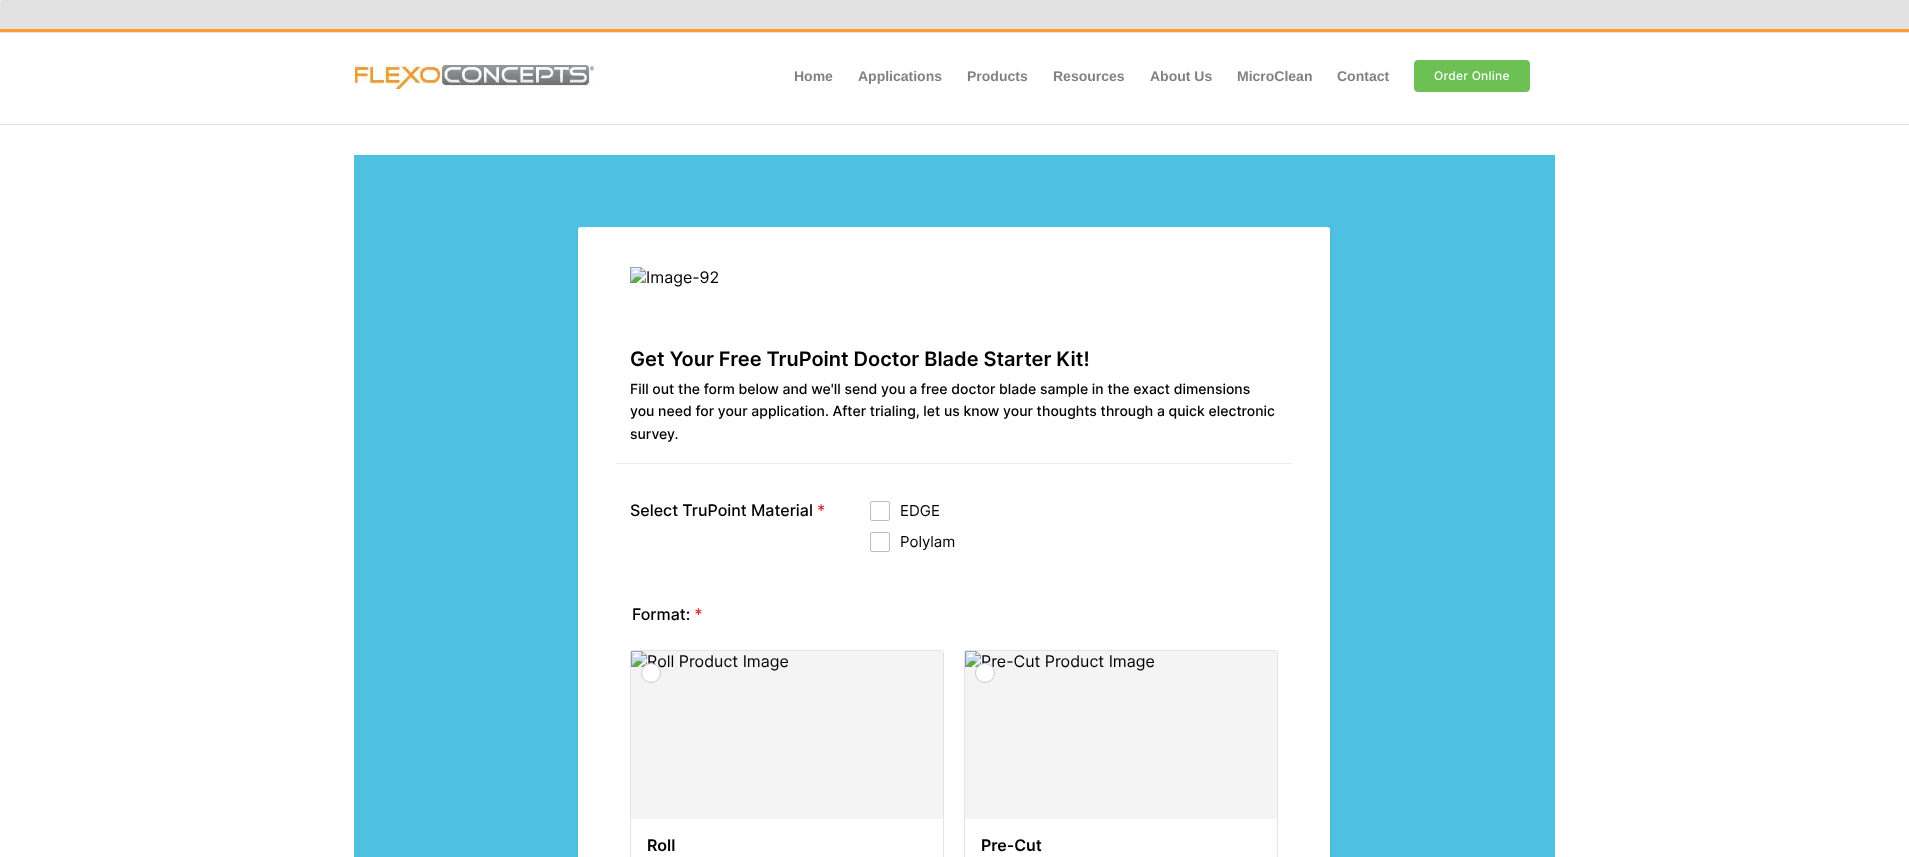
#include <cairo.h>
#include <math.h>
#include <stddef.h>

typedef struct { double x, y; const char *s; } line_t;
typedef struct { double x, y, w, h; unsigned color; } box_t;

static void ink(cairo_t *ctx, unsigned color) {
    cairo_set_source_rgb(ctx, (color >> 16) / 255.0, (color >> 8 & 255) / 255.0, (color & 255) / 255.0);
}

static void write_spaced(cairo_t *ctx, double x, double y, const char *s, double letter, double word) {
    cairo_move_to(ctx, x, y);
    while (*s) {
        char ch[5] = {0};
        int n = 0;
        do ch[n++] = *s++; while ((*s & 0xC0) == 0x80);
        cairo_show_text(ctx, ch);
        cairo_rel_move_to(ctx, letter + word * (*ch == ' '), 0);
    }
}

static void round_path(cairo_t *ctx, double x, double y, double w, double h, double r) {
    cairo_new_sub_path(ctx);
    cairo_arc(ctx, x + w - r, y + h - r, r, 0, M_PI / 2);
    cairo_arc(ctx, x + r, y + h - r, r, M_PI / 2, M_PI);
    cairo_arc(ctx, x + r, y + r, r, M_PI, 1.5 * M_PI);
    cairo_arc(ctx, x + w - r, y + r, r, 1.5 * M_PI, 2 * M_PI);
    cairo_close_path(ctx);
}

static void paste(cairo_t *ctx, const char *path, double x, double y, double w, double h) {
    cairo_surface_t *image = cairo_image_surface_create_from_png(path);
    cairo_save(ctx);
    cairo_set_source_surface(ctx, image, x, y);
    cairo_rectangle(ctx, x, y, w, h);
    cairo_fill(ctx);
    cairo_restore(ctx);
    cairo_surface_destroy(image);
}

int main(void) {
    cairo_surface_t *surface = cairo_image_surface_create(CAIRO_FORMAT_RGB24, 1909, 857);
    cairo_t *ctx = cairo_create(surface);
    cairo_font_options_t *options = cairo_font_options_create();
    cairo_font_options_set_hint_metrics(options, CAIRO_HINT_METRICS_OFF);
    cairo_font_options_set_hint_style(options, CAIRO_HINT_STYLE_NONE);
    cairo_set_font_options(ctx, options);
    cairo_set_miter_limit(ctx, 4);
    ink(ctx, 0xE2E2E2);
    cairo_paint(ctx);
    {
        static const box_t items[] = {
            {0, 0, 1, 1, 0xFFFFFF},
            {0, 33, 1909, 824, 0xFFFFFF},
            {0, 29, 1909, 3, 0xFF9933},
            {0, 124, 1909, 1, 0xE1E1E1},
        };
        for (size_t i = 0; i < sizeof items / sizeof *items; i++) {
            ink(ctx, items[i].color);
            cairo_rectangle(ctx, items[i].x, items[i].y, items[i].w, items[i].h);
            cairo_fill(ctx);
        }
    }
    paste(ctx, "media/1.png", 355, 65, 239, 24);
    cairo_select_font_face(ctx, "Liberation Sans", CAIRO_FONT_SLANT_NORMAL, CAIRO_FONT_WEIGHT_BOLD);
    cairo_set_font_size(ctx, 14);
    ink(ctx, 0x808080);
    {
        static const line_t items[] = {
            {794, 81, "Home"},
            {858, 81, "Applications"},
            {967, 81, "Products"},
            {1053, 81, "Resources"},
            {1150, 81, "About Us"},
            {1237, 81, "MicroClean"},
            {1337, 81, "Contact"},
        };
        for (size_t i = 0; i < sizeof items / sizeof *items; i++) {
            cairo_move_to(ctx, items[i].x, items[i].y);
            cairo_show_text(ctx, items[i].s);
        }
    }
    ink(ctx, 0x6CC054);
    round_path(ctx, 1414, 60, 116, 32, 4);
    cairo_fill(ctx);
    cairo_select_font_face(ctx, "Inter Medium", CAIRO_FONT_SLANT_NORMAL, CAIRO_FONT_WEIGHT_NORMAL);
    cairo_set_font_size(ctx, 12);
    ink(ctx, 0xFFFFFF);
    write_spaced(ctx, 1434, 80, "Order Online", 0.25, 0);
    ink(ctx, 0x4EC1E0);
    cairo_rectangle(ctx, 354, 155, 1201, 702);
    cairo_fill(ctx);
    paste(ctx, "media/2.png", 576, 227, 756, 630);
    cairo_surface_write_to_png(surface, "image.png");
    cairo_font_options_destroy(options);
    cairo_destroy(ctx);
    cairo_surface_destroy(surface);
    return 0;
}
